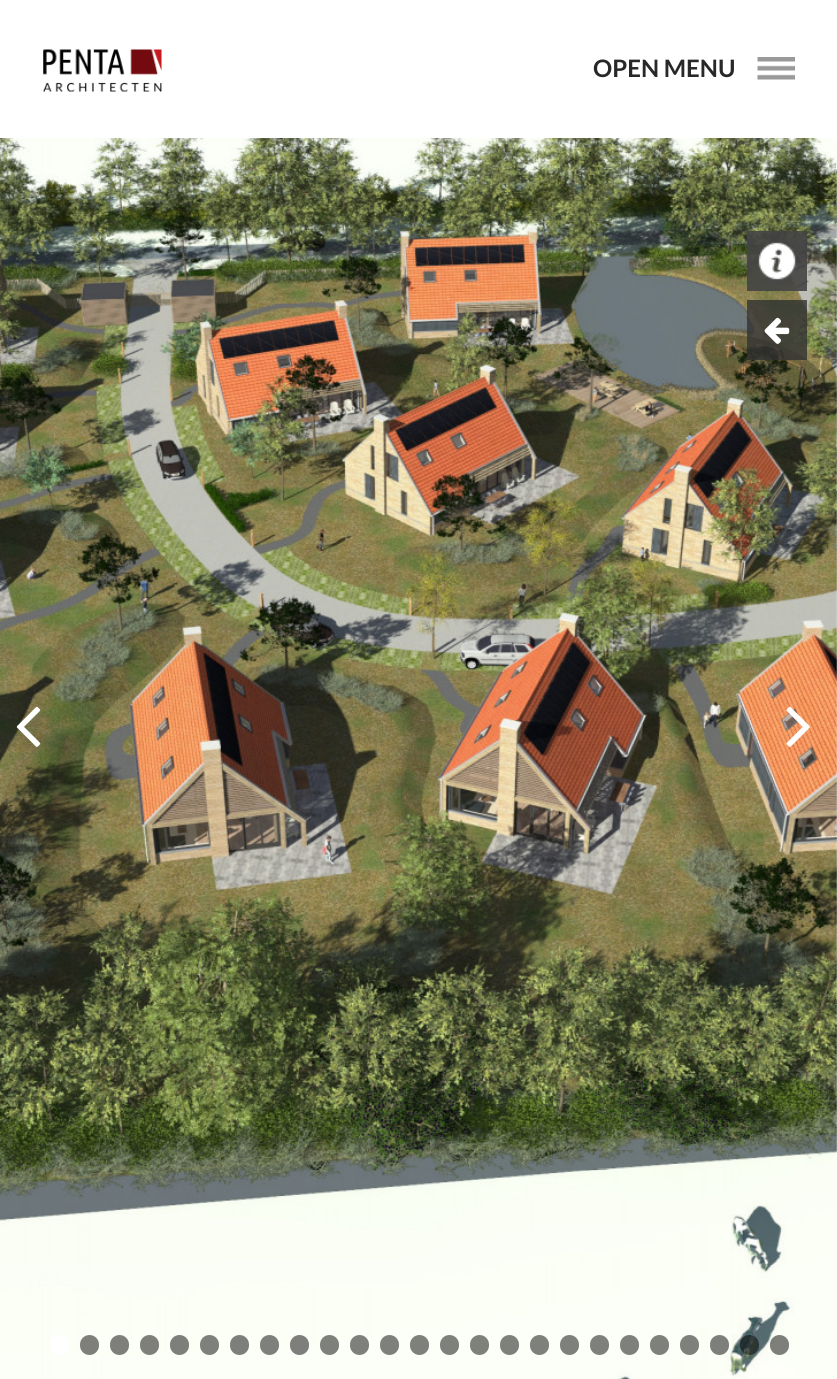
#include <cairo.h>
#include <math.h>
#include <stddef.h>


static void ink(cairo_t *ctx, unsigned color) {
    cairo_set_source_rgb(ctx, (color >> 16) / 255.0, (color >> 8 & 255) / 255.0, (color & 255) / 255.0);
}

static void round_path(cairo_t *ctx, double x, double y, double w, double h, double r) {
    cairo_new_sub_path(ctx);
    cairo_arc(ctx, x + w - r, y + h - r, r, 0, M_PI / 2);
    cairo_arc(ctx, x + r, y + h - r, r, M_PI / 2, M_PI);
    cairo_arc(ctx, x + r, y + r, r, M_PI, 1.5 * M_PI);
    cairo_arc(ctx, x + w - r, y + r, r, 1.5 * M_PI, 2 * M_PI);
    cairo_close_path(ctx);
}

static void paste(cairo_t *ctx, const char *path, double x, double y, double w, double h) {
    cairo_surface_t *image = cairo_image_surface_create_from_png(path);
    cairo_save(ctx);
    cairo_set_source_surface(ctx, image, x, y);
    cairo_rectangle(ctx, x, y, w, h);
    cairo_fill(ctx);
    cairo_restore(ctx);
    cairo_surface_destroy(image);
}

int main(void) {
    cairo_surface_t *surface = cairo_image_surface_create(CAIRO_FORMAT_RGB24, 837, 1379);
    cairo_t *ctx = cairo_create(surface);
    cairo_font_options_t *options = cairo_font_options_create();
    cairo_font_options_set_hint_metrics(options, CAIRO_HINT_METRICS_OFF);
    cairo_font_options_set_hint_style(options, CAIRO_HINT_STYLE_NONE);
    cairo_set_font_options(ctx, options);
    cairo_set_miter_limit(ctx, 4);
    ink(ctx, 0xFFFFFF);
    cairo_paint(ctx);
    paste(ctx, "media/1.png", 43, 49, 119, 43);
    cairo_select_font_face(ctx, "Lato", CAIRO_FONT_SLANT_NORMAL, CAIRO_FONT_WEIGHT_BOLD);
    cairo_set_font_size(ctx, 24);
    ink(ctx, 0x282828);
    cairo_move_to(ctx, 593, 77);
    cairo_show_text(ctx, "OPEN MENU");
    paste(ctx, "media/2.png", 757, 57, 38, 23);
    paste(ctx, "media/3.png", 0, 138, 837, 1241);
    paste(ctx, "media/4.png", 16, 706, 25, 41);
    paste(ctx, "media/5.png", 786, 706, 24, 41);
    paste(ctx, "media/6.png", 747, 231, 60, 60);
    cairo_set_source_rgba(ctx, 0.196, 0.196, 0.196, 0.8);
    cairo_rectangle(ctx, 747, 300, 60, 60);
    cairo_fill(ctx);
    paste(ctx, "media/7.png", 764, 317, 26, 27);
    ink(ctx, 0xFFFFFF);
    round_path(ctx, 50, 1335, 19, 20, 9.5);
    cairo_fill(ctx);
    ink(ctx, 0x7E7F7B);
    round_path(ctx, 80, 1335, 19, 20, 9.5);
    cairo_fill(ctx);
    round_path(ctx, 110, 1335, 19, 20, 9.5);
    cairo_fill(ctx);
    round_path(ctx, 140, 1335, 19, 20, 9.5);
    cairo_fill(ctx);
    cairo_set_source_rgba(ctx, 0, 0, 0, 0.5);
    round_path(ctx, 170, 1335, 19, 20, 9.5);
    cairo_fill(ctx);
    ink(ctx, 0x7E807B);
    round_path(ctx, 200, 1335, 19, 20, 9.5);
    cairo_fill(ctx);
    cairo_set_source_rgba(ctx, 0, 0, 0, 0.5);
    round_path(ctx, 230, 1335, 19, 20, 9.5);
    cairo_fill(ctx);
    ink(ctx, 0x7E807B);
    round_path(ctx, 260, 1335, 19, 20, 9.5);
    cairo_fill(ctx);
    cairo_set_source_rgba(ctx, 0, 0, 0, 0.5);
    round_path(ctx, 290, 1335, 19, 20, 9.5);
    cairo_fill(ctx);
    ink(ctx, 0x7E807C);
    round_path(ctx, 320, 1335, 19, 20, 9.5);
    cairo_fill(ctx);
    round_path(ctx, 350, 1335, 19, 20, 9.5);
    cairo_fill(ctx);
    round_path(ctx, 380, 1335, 19, 20, 9.5);
    cairo_fill(ctx);
    round_path(ctx, 410, 1335, 19, 20, 9.5);
    cairo_fill(ctx);
    round_path(ctx, 440, 1335, 19, 20, 9.5);
    cairo_fill(ctx);
    round_path(ctx, 470, 1335, 19, 20, 9.5);
    cairo_fill(ctx);
    round_path(ctx, 500, 1335, 19, 20, 9.5);
    cairo_fill(ctx);
    round_path(ctx, 530, 1335, 19, 20, 9.5);
    cairo_fill(ctx);
    round_path(ctx, 560, 1335, 19, 20, 9.5);
    cairo_fill(ctx);
    round_path(ctx, 590, 1335, 19, 20, 9.5);
    cairo_fill(ctx);
    round_path(ctx, 620, 1335, 19, 20, 9.5);
    cairo_fill(ctx);
    round_path(ctx, 650, 1335, 19, 20, 9.5);
    cairo_fill(ctx);
    ink(ctx, 0x7E807B);
    round_path(ctx, 680, 1335, 19, 20, 9.5);
    cairo_fill(ctx);
    ink(ctx, 0x7E7F7B);
    round_path(ctx, 710, 1335, 19, 20, 9.5);
    cairo_fill(ctx);
    cairo_set_source_rgba(ctx, 0, 0, 0, 0.5);
    round_path(ctx, 740, 1335, 19, 20, 9.5);
    cairo_fill(ctx);
    round_path(ctx, 770, 1335, 19, 20, 9.5);
    cairo_fill(ctx);
    cairo_surface_write_to_png(surface, "image.png");
    cairo_font_options_destroy(options);
    cairo_destroy(ctx);
    cairo_surface_destroy(surface);
    return 0;
}
